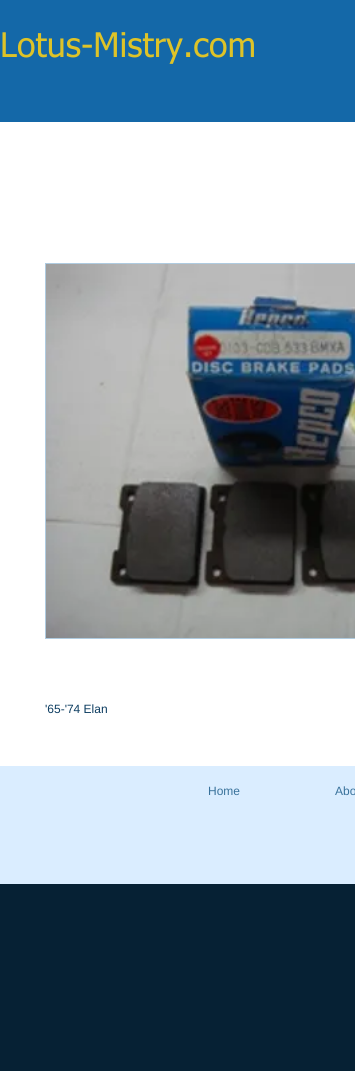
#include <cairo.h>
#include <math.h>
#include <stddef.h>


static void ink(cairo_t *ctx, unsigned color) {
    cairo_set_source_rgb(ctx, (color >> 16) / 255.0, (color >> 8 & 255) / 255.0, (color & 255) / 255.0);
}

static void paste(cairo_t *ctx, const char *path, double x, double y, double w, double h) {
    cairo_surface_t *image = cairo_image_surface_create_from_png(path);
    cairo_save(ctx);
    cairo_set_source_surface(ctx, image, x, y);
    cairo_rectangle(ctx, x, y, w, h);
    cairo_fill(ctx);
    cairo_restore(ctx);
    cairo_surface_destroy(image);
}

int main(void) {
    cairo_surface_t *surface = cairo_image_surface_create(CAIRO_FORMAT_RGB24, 355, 1071);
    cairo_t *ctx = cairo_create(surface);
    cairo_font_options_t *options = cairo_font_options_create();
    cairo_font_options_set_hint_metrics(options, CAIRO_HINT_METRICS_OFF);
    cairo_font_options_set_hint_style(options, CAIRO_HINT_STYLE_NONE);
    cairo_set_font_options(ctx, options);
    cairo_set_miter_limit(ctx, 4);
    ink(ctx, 0x062134);
    cairo_paint(ctx);
    ink(ctx, 0x1468A8);
    cairo_rectangle(ctx, 0, 0, 355, 122);
    cairo_fill(ctx);
    cairo_select_font_face(ctx, "tahoma", CAIRO_FONT_SLANT_NORMAL, CAIRO_FONT_WEIGHT_NORMAL);
    cairo_set_font_size(ctx, 34);
    ink(ctx, 0xDEC328);
    cairo_move_to(ctx, 0, 57);
    cairo_show_text(ctx, "Lotus-Mistry.com");
    ink(ctx, 0xFFFFFF);
    cairo_rectangle(ctx, 0, 122, 355, 644);
    cairo_fill(ctx);
    cairo_rectangle(ctx, 45.5, 263.5, 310, 375);
    ink(ctx, 0xAFCBE0);
    cairo_set_line_width(ctx, 1);
    cairo_stroke(ctx);
    paste(ctx, "media/1.png", 46, 264, 309, 374);
    cairo_select_font_face(ctx, "Liberation Sans", CAIRO_FONT_SLANT_NORMAL, CAIRO_FONT_WEIGHT_NORMAL);
    cairo_set_font_size(ctx, 12);
    ink(ctx, 0x0C3C60);
    cairo_move_to(ctx, 45, 713);
    cairo_show_text(ctx, "'65-'74 Elan");
    ink(ctx, 0xDAEDFF);
    cairo_rectangle(ctx, 0, 766, 355, 118);
    cairo_fill(ctx);
    ink(ctx, 0x39729B);
    cairo_move_to(ctx, 208, 795);
    cairo_show_text(ctx, "Home");
    cairo_move_to(ctx, 335, 795);
    cairo_show_text(ctx, "Abo");
    cairo_surface_write_to_png(surface, "image.png");
    cairo_font_options_destroy(options);
    cairo_destroy(ctx);
    cairo_surface_destroy(surface);
    return 0;
}
